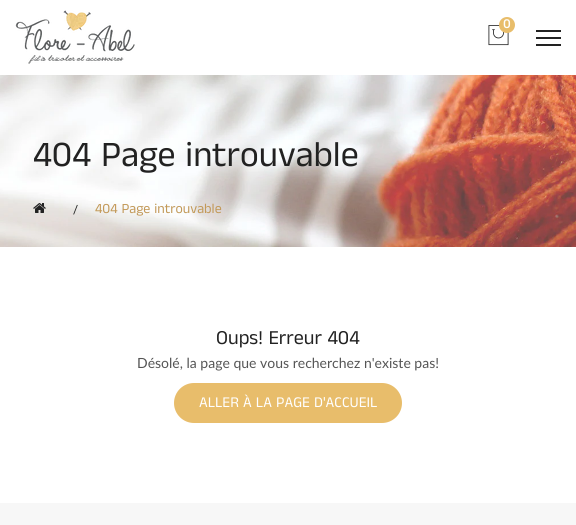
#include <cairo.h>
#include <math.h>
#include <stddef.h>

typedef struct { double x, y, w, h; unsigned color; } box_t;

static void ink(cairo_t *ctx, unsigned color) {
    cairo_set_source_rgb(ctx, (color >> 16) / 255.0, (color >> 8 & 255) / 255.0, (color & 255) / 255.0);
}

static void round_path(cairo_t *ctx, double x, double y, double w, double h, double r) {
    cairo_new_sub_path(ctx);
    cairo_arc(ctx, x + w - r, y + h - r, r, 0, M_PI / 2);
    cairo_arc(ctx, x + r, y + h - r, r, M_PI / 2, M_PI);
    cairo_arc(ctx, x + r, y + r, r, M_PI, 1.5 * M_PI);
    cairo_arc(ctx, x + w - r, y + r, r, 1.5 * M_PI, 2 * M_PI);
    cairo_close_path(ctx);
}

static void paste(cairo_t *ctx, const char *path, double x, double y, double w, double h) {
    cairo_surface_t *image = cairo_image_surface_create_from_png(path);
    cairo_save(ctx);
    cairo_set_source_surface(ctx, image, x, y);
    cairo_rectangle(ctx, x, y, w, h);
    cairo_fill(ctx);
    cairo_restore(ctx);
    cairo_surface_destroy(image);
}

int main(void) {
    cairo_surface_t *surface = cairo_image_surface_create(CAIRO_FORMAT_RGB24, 576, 525);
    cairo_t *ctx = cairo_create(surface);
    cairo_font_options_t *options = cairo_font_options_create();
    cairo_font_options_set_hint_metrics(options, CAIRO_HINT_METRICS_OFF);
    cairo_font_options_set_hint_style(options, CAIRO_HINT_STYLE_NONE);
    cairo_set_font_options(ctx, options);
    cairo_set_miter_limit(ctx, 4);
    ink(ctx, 0xFFFFFF);
    cairo_paint(ctx);
    paste(ctx, "media/1.png", 15, 10, 120, 54);
    paste(ctx, "media/2.png", 488, 25, 21, 21);
    ink(ctx, 0xE8BD6B);
    cairo_arc(ctx, 507, 25, 8, 0, 2 * M_PI);
    cairo_fill(ctx);
    cairo_select_font_face(ctx, "Anek Tamil", CAIRO_FONT_SLANT_NORMAL, CAIRO_FONT_WEIGHT_BOLD);
    cairo_set_font_size(ctx, 13);
    ink(ctx, 0xFFFFFF);
    cairo_move_to(ctx, 503, 28);
    cairo_show_text(ctx, "0");
    {
        static const box_t items[] = {
            {536, 30, 25, 2, 0x222222},
            {536, 37, 25, 2, 0x222222},
            {536, 44, 25, 2, 0x222222},
        };
        for (size_t i = 0; i < sizeof items / sizeof *items; i++) {
            ink(ctx, items[i].color);
            cairo_rectangle(ctx, items[i].x, items[i].y, items[i].w, items[i].h);
            cairo_fill(ctx);
        }
    }
    paste(ctx, "media/3.png", 0, 75, 576, 172);
    cairo_select_font_face(ctx, "Anek Tamil", CAIRO_FONT_SLANT_NORMAL, CAIRO_FONT_WEIGHT_NORMAL);
    cairo_set_font_size(ctx, 36);
    cairo_move_to(ctx, 33, 166);
    cairo_show_text(ctx, "404 Page introuvable");
    paste(ctx, "media/4.png", 33, 203, 13, 10);
    cairo_set_font_size(ctx, 12);
    cairo_move_to(ctx, 73, 213);
    cairo_show_text(ctx, "/");
    cairo_set_font_size(ctx, 14);
    ink(ctx, 0xC29958);
    cairo_move_to(ctx, 95, 213);
    cairo_show_text(ctx, "404 Page introuvable");
    cairo_set_font_size(ctx, 20);
    ink(ctx, 0x222222);
    cairo_move_to(ctx, 216, 344);
    cairo_show_text(ctx, "Oups! Erreur 404");
    cairo_select_font_face(ctx, "Lato", CAIRO_FONT_SLANT_NORMAL, CAIRO_FONT_WEIGHT_NORMAL);
    cairo_set_font_size(ctx, 14);
    ink(ctx, 0x555555);
    cairo_move_to(ctx, 137, 368);
    cairo_show_text(ctx, "Désolé, la page que vous recherchez n'existe pas!");
    ink(ctx, 0xE8BD6B);
    round_path(ctx, 174, 383, 228, 40, 20);
    cairo_fill(ctx);
    cairo_select_font_face(ctx, "Anek Tamil", CAIRO_FONT_SLANT_NORMAL, CAIRO_FONT_WEIGHT_NORMAL);
    cairo_set_font_size(ctx, 15);
    ink(ctx, 0xFFFFFF);
    cairo_move_to(ctx, 199, 407);
    cairo_show_text(ctx, "ALLER À LA PAGE D'ACCUEIL");
    ink(ctx, 0xF7F7F7);
    cairo_rectangle(ctx, 0, 503, 576, 22);
    cairo_fill(ctx);
    cairo_surface_write_to_png(surface, "image.png");
    cairo_font_options_destroy(options);
    cairo_destroy(ctx);
    cairo_surface_destroy(surface);
    return 0;
}
